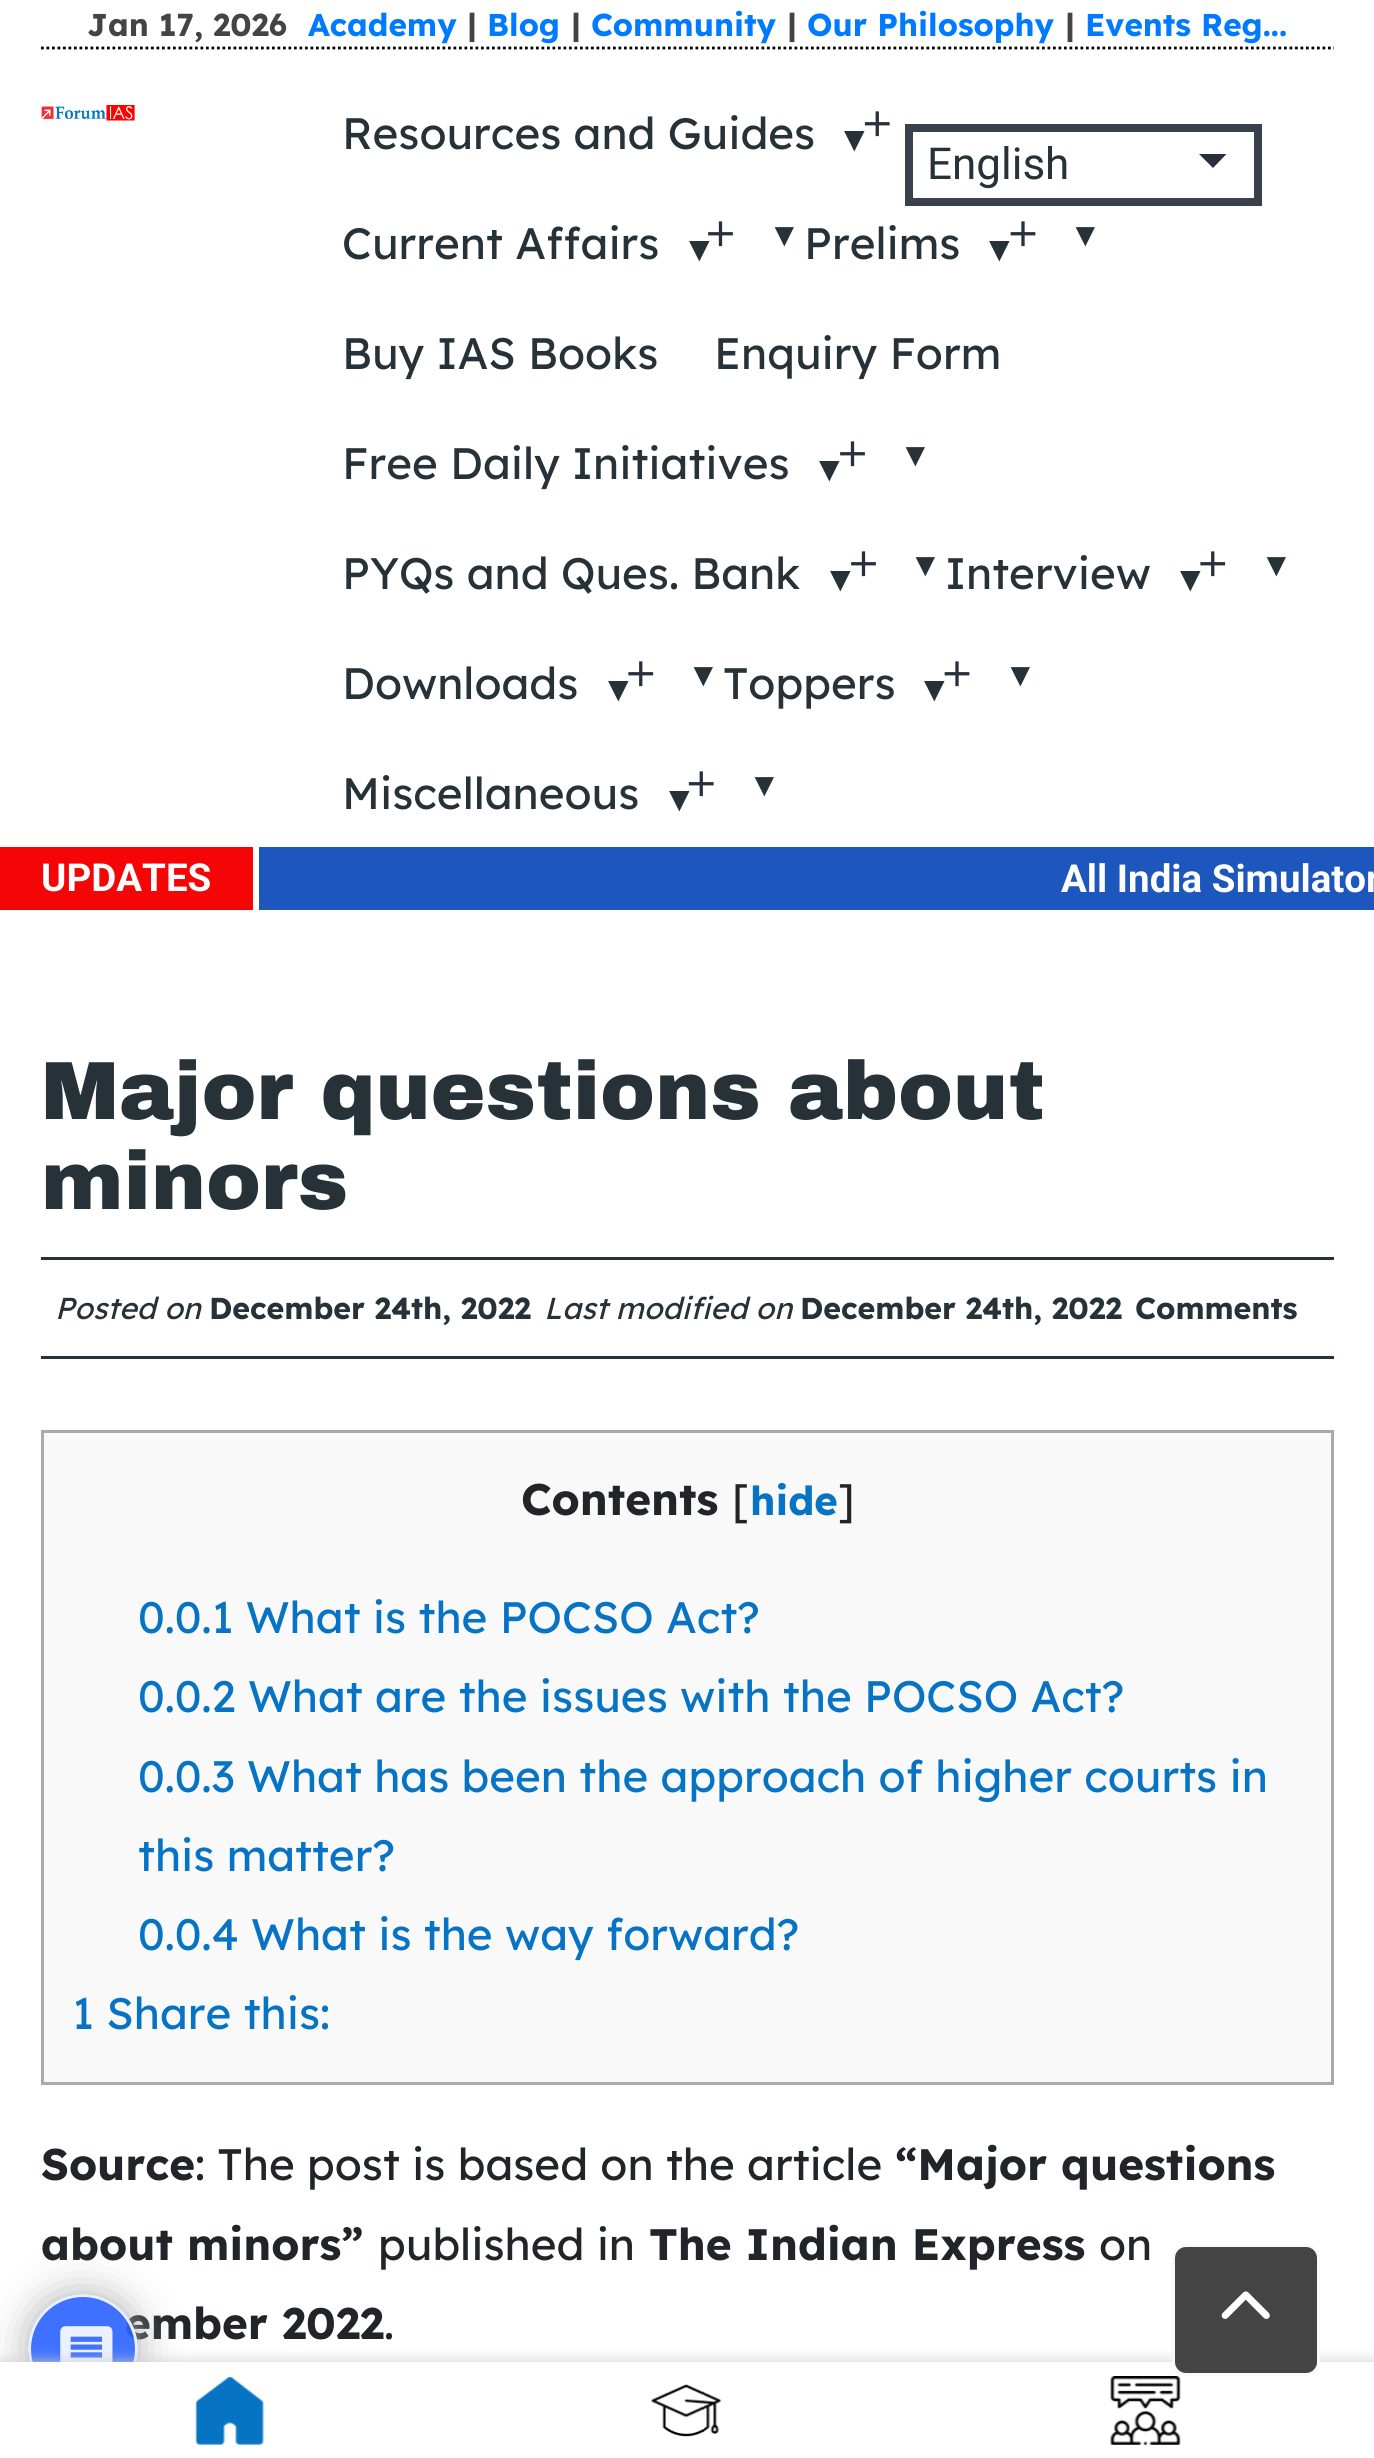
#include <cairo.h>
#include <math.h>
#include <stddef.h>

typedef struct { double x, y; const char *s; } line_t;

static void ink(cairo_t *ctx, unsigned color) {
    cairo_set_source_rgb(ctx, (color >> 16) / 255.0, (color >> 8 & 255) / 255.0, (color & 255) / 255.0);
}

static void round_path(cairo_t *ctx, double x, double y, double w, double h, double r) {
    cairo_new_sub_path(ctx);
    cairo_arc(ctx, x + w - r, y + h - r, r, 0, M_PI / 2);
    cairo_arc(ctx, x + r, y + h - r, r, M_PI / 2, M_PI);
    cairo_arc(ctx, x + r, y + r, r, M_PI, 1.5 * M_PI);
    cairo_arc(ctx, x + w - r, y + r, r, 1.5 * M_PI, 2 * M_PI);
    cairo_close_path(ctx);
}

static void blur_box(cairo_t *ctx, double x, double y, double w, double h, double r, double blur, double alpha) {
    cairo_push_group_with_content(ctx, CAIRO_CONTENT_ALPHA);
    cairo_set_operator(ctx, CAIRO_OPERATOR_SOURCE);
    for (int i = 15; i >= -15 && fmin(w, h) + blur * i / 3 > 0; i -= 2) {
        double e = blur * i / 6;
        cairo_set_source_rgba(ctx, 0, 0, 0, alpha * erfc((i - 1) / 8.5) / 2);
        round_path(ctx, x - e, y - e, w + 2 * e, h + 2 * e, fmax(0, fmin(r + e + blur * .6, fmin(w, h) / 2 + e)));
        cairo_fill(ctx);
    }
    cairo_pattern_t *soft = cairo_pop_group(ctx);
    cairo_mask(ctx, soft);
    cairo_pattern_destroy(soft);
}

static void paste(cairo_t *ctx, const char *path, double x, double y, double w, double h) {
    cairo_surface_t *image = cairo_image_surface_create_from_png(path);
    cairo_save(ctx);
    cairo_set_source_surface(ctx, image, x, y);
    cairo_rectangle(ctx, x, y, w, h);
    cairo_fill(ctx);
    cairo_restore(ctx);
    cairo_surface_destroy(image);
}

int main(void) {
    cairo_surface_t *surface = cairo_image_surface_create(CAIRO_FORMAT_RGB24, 1374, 2458);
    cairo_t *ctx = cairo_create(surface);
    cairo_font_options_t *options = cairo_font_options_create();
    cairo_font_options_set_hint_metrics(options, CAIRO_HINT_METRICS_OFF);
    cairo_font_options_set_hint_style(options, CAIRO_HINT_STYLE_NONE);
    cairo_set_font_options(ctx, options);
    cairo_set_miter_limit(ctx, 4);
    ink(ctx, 0xFFFFFF);
    cairo_paint(ctx);
    cairo_new_path(ctx);
    cairo_move_to(ctx, 41, 48);
    cairo_line_to(ctx, 1334, 48);
    ink(ctx, 0x000000);
    cairo_set_line_width(ctx, 2.8);
    cairo_set_dash(ctx, (double[]){2.75, 2.75}, 2, 0);
    cairo_stroke(ctx);
    cairo_select_font_face(ctx, "Lexend", CAIRO_FONT_SLANT_NORMAL, CAIRO_FONT_WEIGHT_BOLD);
    cairo_set_font_size(ctx, 31.5);
    ink(ctx, 0x444444);
    cairo_move_to(ctx, 87, 36);
    cairo_show_text(ctx, "Jan 17, 2026");
    ink(ctx, 0x007BFF);
    cairo_move_to(ctx, 308, 36);
    cairo_show_text(ctx, "Academy");
    ink(ctx, 0x444444);
    cairo_move_to(ctx, 467, 36);
    cairo_show_text(ctx, "|");
    ink(ctx, 0x007BFF);
    cairo_move_to(ctx, 487, 36);
    cairo_show_text(ctx, "Blog");
    ink(ctx, 0x444444);
    cairo_move_to(ctx, 571, 36);
    cairo_show_text(ctx, "|");
    ink(ctx, 0x007BFF);
    cairo_move_to(ctx, 591, 36);
    cairo_show_text(ctx, "Community");
    ink(ctx, 0x444444);
    cairo_move_to(ctx, 787, 36);
    cairo_show_text(ctx, "|");
    ink(ctx, 0x007BFF);
    cairo_move_to(ctx, 807, 36);
    cairo_show_text(ctx, "Our Philosophy");
    ink(ctx, 0x444444);
    cairo_move_to(ctx, 1065, 36);
    cairo_show_text(ctx, "|");
    ink(ctx, 0x007BFF);
    cairo_move_to(ctx, 1085, 36);
    cairo_show_text(ctx, "Events Reg...");
    paste(ctx, "media/1.png", 41, 105, 94, 16);
    cairo_select_font_face(ctx, "Lexend", CAIRO_FONT_SLANT_NORMAL, CAIRO_FONT_WEIGHT_NORMAL);
    cairo_set_font_size(ctx, 44);
    ink(ctx, 0x263238);
    cairo_move_to(ctx, 342, 149);
    cairo_show_text(ctx, "Resources and Guides");
    cairo_select_font_face(ctx, "Liberation Sans", CAIRO_FONT_SLANT_NORMAL, CAIRO_FONT_WEIGHT_NORMAL);
    cairo_set_font_size(ctx, 35);
    cairo_move_to(ctx, 837, 151);
    cairo_show_text(ctx, "▼");
    paste(ctx, "media/2.png", 864, 111, 26, 26);
    cairo_select_font_face(ctx, "Lexend", CAIRO_FONT_SLANT_NORMAL, CAIRO_FONT_WEIGHT_NORMAL);
    cairo_set_font_size(ctx, 44);
    cairo_move_to(ctx, 342, 259);
    cairo_show_text(ctx, "Current Affairs");
    cairo_select_font_face(ctx, "Liberation Sans", CAIRO_FONT_SLANT_NORMAL, CAIRO_FONT_WEIGHT_NORMAL);
    cairo_set_font_size(ctx, 35);
    cairo_move_to(ctx, 682, 261);
    cairo_show_text(ctx, "▼");
    paste(ctx, "media/3.png", 708, 221, 25, 26);
    cairo_set_font_size(ctx, 33);
    cairo_move_to(ctx, 768, 246);
    cairo_show_text(ctx, "▼");
    cairo_select_font_face(ctx, "Lexend", CAIRO_FONT_SLANT_NORMAL, CAIRO_FONT_WEIGHT_NORMAL);
    cairo_set_font_size(ctx, 44);
    cairo_move_to(ctx, 804, 259);
    cairo_show_text(ctx, "Prelims");
    cairo_select_font_face(ctx, "Liberation Sans", CAIRO_FONT_SLANT_NORMAL, CAIRO_FONT_WEIGHT_NORMAL);
    cairo_set_font_size(ctx, 35);
    cairo_move_to(ctx, 982, 261);
    cairo_show_text(ctx, "▼");
    paste(ctx, "media/4.png", 1010, 221, 26, 26);
    cairo_set_font_size(ctx, 33);
    cairo_move_to(ctx, 1069, 246);
    cairo_show_text(ctx, "▼");
    cairo_select_font_face(ctx, "Lexend", CAIRO_FONT_SLANT_NORMAL, CAIRO_FONT_WEIGHT_NORMAL);
    cairo_set_font_size(ctx, 44);
    {
        static const line_t items[] = {
            {342, 369, "Buy IAS Books"},
            {714, 369, "Enquiry Form"},
            {342, 479, "Free Daily Initiatives"},
        };
        for (size_t i = 0; i < sizeof items / sizeof *items; i++) {
            cairo_move_to(ctx, items[i].x, items[i].y);
            cairo_show_text(ctx, items[i].s);
        }
    }
    cairo_select_font_face(ctx, "Liberation Sans", CAIRO_FONT_SLANT_NORMAL, CAIRO_FONT_WEIGHT_NORMAL);
    cairo_set_font_size(ctx, 35);
    cairo_move_to(ctx, 812, 481);
    cairo_show_text(ctx, "▼");
    paste(ctx, "media/5.png", 840, 441, 25, 26);
    cairo_set_font_size(ctx, 33);
    cairo_move_to(ctx, 899, 466);
    cairo_show_text(ctx, "▼");
    cairo_select_font_face(ctx, "Lexend", CAIRO_FONT_SLANT_NORMAL, CAIRO_FONT_WEIGHT_NORMAL);
    cairo_set_font_size(ctx, 44);
    cairo_move_to(ctx, 342, 589);
    cairo_show_text(ctx, "PYQs and Ques. Bank");
    cairo_select_font_face(ctx, "Liberation Sans", CAIRO_FONT_SLANT_NORMAL, CAIRO_FONT_WEIGHT_NORMAL);
    cairo_set_font_size(ctx, 35);
    cairo_move_to(ctx, 823, 591);
    cairo_show_text(ctx, "▼");
    paste(ctx, "media/5.png", 851, 551, 25, 26);
    cairo_set_font_size(ctx, 33);
    cairo_move_to(ctx, 909, 576);
    cairo_show_text(ctx, "▼");
    cairo_select_font_face(ctx, "Lexend", CAIRO_FONT_SLANT_NORMAL, CAIRO_FONT_WEIGHT_NORMAL);
    cairo_set_font_size(ctx, 44);
    cairo_move_to(ctx, 945, 589);
    cairo_show_text(ctx, "Interview");
    cairo_select_font_face(ctx, "Liberation Sans", CAIRO_FONT_SLANT_NORMAL, CAIRO_FONT_WEIGHT_NORMAL);
    cairo_set_font_size(ctx, 35);
    cairo_move_to(ctx, 1173, 591);
    cairo_show_text(ctx, "▼");
    paste(ctx, "media/6.png", 1200, 551, 26, 26);
    cairo_set_font_size(ctx, 33);
    cairo_move_to(ctx, 1260, 576);
    cairo_show_text(ctx, "▼");
    cairo_select_font_face(ctx, "Lexend", CAIRO_FONT_SLANT_NORMAL, CAIRO_FONT_WEIGHT_NORMAL);
    cairo_set_font_size(ctx, 44);
    cairo_move_to(ctx, 342, 699);
    cairo_show_text(ctx, "Downloads");
    cairo_select_font_face(ctx, "Liberation Sans", CAIRO_FONT_SLANT_NORMAL, CAIRO_FONT_WEIGHT_NORMAL);
    cairo_set_font_size(ctx, 35);
    cairo_move_to(ctx, 601, 701);
    cairo_show_text(ctx, "▼");
    paste(ctx, "media/7.png", 628, 661, 26, 26);
    cairo_set_font_size(ctx, 33);
    cairo_move_to(ctx, 687, 686);
    cairo_show_text(ctx, "▼");
    cairo_select_font_face(ctx, "Lexend", CAIRO_FONT_SLANT_NORMAL, CAIRO_FONT_WEIGHT_NORMAL);
    cairo_set_font_size(ctx, 44);
    cairo_move_to(ctx, 723, 699);
    cairo_show_text(ctx, "Toppers");
    cairo_select_font_face(ctx, "Liberation Sans", CAIRO_FONT_SLANT_NORMAL, CAIRO_FONT_WEIGHT_NORMAL);
    cairo_set_font_size(ctx, 35);
    cairo_move_to(ctx, 917, 701);
    cairo_show_text(ctx, "▼");
    paste(ctx, "media/8.png", 944, 661, 26, 26);
    cairo_set_font_size(ctx, 33);
    cairo_move_to(ctx, 1004, 686);
    cairo_show_text(ctx, "▼");
    cairo_select_font_face(ctx, "Lexend", CAIRO_FONT_SLANT_NORMAL, CAIRO_FONT_WEIGHT_NORMAL);
    cairo_set_font_size(ctx, 44);
    cairo_move_to(ctx, 342, 809);
    cairo_show_text(ctx, "Miscellaneous");
    cairo_select_font_face(ctx, "Liberation Sans", CAIRO_FONT_SLANT_NORMAL, CAIRO_FONT_WEIGHT_NORMAL);
    cairo_set_font_size(ctx, 35);
    cairo_move_to(ctx, 662, 811);
    cairo_show_text(ctx, "▼");
    paste(ctx, "media/9.png", 688, 771, 26, 26);
    cairo_set_font_size(ctx, 33);
    cairo_move_to(ctx, 748, 796);
    cairo_show_text(ctx, "▼");
    ink(ctx, 0x1D57BD);
    cairo_rectangle(ctx, 259, 847, 1115, 63);
    cairo_fill(ctx);
    ink(ctx, 0xF50505);
    cairo_rectangle(ctx, 0, 847, 253, 63);
    cairo_fill(ctx);
    cairo_select_font_face(ctx, "Roboto", CAIRO_FONT_SLANT_NORMAL, CAIRO_FONT_WEIGHT_BOLD);
    cairo_set_font_size(ctx, 38.5);
    ink(ctx, 0xFFFFFF);
    cairo_move_to(ctx, 41, 891);
    cairo_show_text(ctx, "UPDATES");
    cairo_move_to(ctx, 1061, 892);
    cairo_show_text(ctx, "All India Simulator");
    cairo_select_font_face(ctx, "Archivo Black Black", CAIRO_FONT_SLANT_NORMAL, CAIRO_FONT_WEIGHT_NORMAL);
    cairo_set_font_size(ctx, 82.5);
    ink(ctx, 0x263238);
    cairo_move_to(ctx, 41, 1119);
    cairo_show_text(ctx, "Major questions about");
    cairo_move_to(ctx, 41, 1209);
    cairo_show_text(ctx, "minors");
    cairo_rectangle(ctx, 41, 1257, 1293, 3);
    cairo_fill(ctx);
    cairo_rectangle(ctx, 41, 1356, 1293, 3);
    cairo_fill(ctx);
    cairo_select_font_face(ctx, "Lexend", CAIRO_FONT_SLANT_ITALIC, CAIRO_FONT_WEIGHT_NORMAL);
    cairo_set_font_size(ctx, 30.25);
    cairo_move_to(ctx, 55, 1319);
    cairo_show_text(ctx, "Posted on");
    cairo_select_font_face(ctx, "Lexend", CAIRO_FONT_SLANT_NORMAL, CAIRO_FONT_WEIGHT_BOLD);
    cairo_move_to(ctx, 209, 1319);
    cairo_show_text(ctx, "December 24th, 2022");
    cairo_select_font_face(ctx, "Lexend", CAIRO_FONT_SLANT_ITALIC, CAIRO_FONT_WEIGHT_NORMAL);
    cairo_move_to(ctx, 544, 1319);
    cairo_show_text(ctx, "Last modified on");
    cairo_select_font_face(ctx, "Lexend", CAIRO_FONT_SLANT_NORMAL, CAIRO_FONT_WEIGHT_BOLD);
    cairo_move_to(ctx, 800, 1319);
    cairo_show_text(ctx, "December 24th, 2022");
    cairo_move_to(ctx, 1135, 1319);
    cairo_show_text(ctx, "Comments");
    ink(ctx, 0xF9F9F9);
    cairo_rectangle(ctx, 42.5, 1431.5, 1290, 652);
    cairo_fill_preserve(ctx);
    ink(ctx, 0xAAAAAA);
    cairo_set_line_width(ctx, 3);
    cairo_set_dash(ctx, NULL, 0, 0);
    cairo_stroke(ctx);
    cairo_set_font_size(ctx, 44);
    ink(ctx, 0x212529);
    cairo_move_to(ctx, 521, 1515);
    cairo_show_text(ctx, "Contents");
    cairo_select_font_face(ctx, "Lexend", CAIRO_FONT_SLANT_NORMAL, CAIRO_FONT_WEIGHT_NORMAL);
    cairo_move_to(ctx, 732, 1515);
    cairo_show_text(ctx, "[");
    cairo_select_font_face(ctx, "Lexend", CAIRO_FONT_SLANT_NORMAL, CAIRO_FONT_WEIGHT_BOLD);
    cairo_set_font_size(ctx, 40);
    ink(ctx, 0x0773C5);
    cairo_move_to(ctx, 750, 1515);
    cairo_show_text(ctx, "hide");
    cairo_select_font_face(ctx, "Lexend", CAIRO_FONT_SLANT_NORMAL, CAIRO_FONT_WEIGHT_NORMAL);
    cairo_set_font_size(ctx, 44);
    ink(ctx, 0x212529);
    cairo_move_to(ctx, 837, 1515);
    cairo_show_text(ctx, "]");
    ink(ctx, 0x0773C5);
    {
        static const line_t items[] = {
            {138, 1633, "0.0.1 What is the POCSO Act?"},
            {138, 1712, "0.0.2 What are the issues with the POCSO Act?"},
            {138, 1792, "0.0.3 What has been the approach of higher courts in"},
            {138, 1871, "this matter?"},
            {138, 1950, "0.0.4 What is the way forward?"},
            {72, 2029, "1 Share this:"},
        };
        for (size_t i = 0; i < sizeof items / sizeof *items; i++) {
            cairo_move_to(ctx, items[i].x, items[i].y);
            cairo_show_text(ctx, items[i].s);
        }
    }
    cairo_select_font_face(ctx, "Lexend", CAIRO_FONT_SLANT_NORMAL, CAIRO_FONT_WEIGHT_BOLD);
    ink(ctx, 0x212529);
    cairo_move_to(ctx, 41, 2180);
    cairo_show_text(ctx, "Source");
    cairo_select_font_face(ctx, "Lexend", CAIRO_FONT_SLANT_NORMAL, CAIRO_FONT_WEIGHT_NORMAL);
    cairo_move_to(ctx, 195, 2180);
    cairo_show_text(ctx, ": The post is based on the article");
    cairo_select_font_face(ctx, "Lexend", CAIRO_FONT_SLANT_NORMAL, CAIRO_FONT_WEIGHT_BOLD);
    cairo_move_to(ctx, 895, 2180);
    cairo_show_text(ctx, "“Major questions");
    cairo_move_to(ctx, 41, 2260);
    cairo_show_text(ctx, "about minors”");
    cairo_select_font_face(ctx, "Lexend", CAIRO_FONT_SLANT_NORMAL, CAIRO_FONT_WEIGHT_NORMAL);
    cairo_move_to(ctx, 378, 2260);
    cairo_show_text(ctx, "published in");
    cairo_select_font_face(ctx, "Lexend", CAIRO_FONT_SLANT_NORMAL, CAIRO_FONT_WEIGHT_BOLD);
    cairo_move_to(ctx, 649, 2260);
    cairo_show_text(ctx, "The Indian Express");
    cairo_select_font_face(ctx, "Lexend", CAIRO_FONT_SLANT_NORMAL, CAIRO_FONT_WEIGHT_NORMAL);
    cairo_move_to(ctx, 1099, 2260);
    cairo_show_text(ctx, "on");
    cairo_select_font_face(ctx, "Lexend", CAIRO_FONT_SLANT_NORMAL, CAIRO_FONT_WEIGHT_BOLD);
    cairo_move_to(ctx, 125, 2339);
    cairo_show_text(ctx, "ember 2022");
    cairo_select_font_face(ctx, "Lexend", CAIRO_FONT_SLANT_NORMAL, CAIRO_FONT_WEIGHT_NORMAL);
    cairo_move_to(ctx, 384, 2339);
    cairo_show_text(ctx, ".");
    cairo_save(ctx);
    cairo_set_fill_rule(ctx, CAIRO_FILL_RULE_EVEN_ODD);
    cairo_new_path(ctx);
    cairo_move_to(ctx, 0, 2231);
    cairo_line_to(ctx, 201, 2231);
    cairo_line_to(ctx, 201, 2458);
    cairo_line_to(ctx, 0, 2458);
    cairo_close_path(ctx);
    cairo_move_to(ctx, 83, 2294);
    cairo_curve_to(ctx, 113.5, 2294, 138, 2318.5, 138, 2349);
    cairo_curve_to(ctx, 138, 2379.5, 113.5, 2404, 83, 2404);
    cairo_curve_to(ctx, 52.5, 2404, 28, 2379.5, 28, 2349);
    cairo_curve_to(ctx, 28, 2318.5, 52.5, 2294, 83, 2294);
    cairo_close_path(ctx);
    cairo_clip(ctx);
    ink(ctx, 0xAAAAAA);
    blur_box(ctx, 28, 2294, 110, 110, 55, 20.5, 0.9);
    cairo_restore(ctx);
    cairo_set_source_rgba(ctx, 0.161, 0.384, 1, 0.9);
    cairo_arc(ctx, 83, 2349, 55, 0, 2 * M_PI);
    cairo_fill(ctx);
    cairo_arc(ctx, 83, 2349, 53.5, 0, 2 * M_PI);
    cairo_set_source_rgba(ctx, 1, 1, 1, 0.9);
    cairo_stroke(ctx);
    paste(ctx, "media/13.png", 60, 2326, 53, 36);
    ink(ctx, 0xCDCDCD);
    blur_box(ctx, 0, 2362, 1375, 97, 0, 7, 1);
    ink(ctx, 0xFFFFFF);
    cairo_rectangle(ctx, 0, 2362, 1374, 96);
    cairo_fill(ctx);
    paste(ctx, "media/10.png", 195, 2376, 70, 69);
    paste(ctx, "media/11.png", 651, 2384, 70, 53);
    paste(ctx, "media/12.png", 1110, 2376, 71, 69);
    ink(ctx, 0x28303D);
    cairo_new_path(ctx);
    cairo_move_to(ctx, 1199, 154);
    cairo_line_to(ctx, 1226.5, 154);
    cairo_line_to(ctx, 1213, 168);
    cairo_close_path(ctx);
    cairo_fill(ctx);
    cairo_rectangle(ctx, 909, 128, 349, 74);
    ink(ctx, 0x39414D);
    cairo_set_line_width(ctx, 8);
    cairo_stroke(ctx);
    cairo_select_font_face(ctx, "Roboto", CAIRO_FONT_SLANT_NORMAL, CAIRO_FONT_WEIGHT_NORMAL);
    ink(ctx, 0x263238);
    cairo_move_to(ctx, 927, 179);
    cairo_show_text(ctx, "English");
    ink(ctx, 0x444444);
    round_path(ctx, 1173.5, 2245.5, 145, 129, 12.5);
    cairo_fill_preserve(ctx);
    ink(ctx, 0xF8F9FA);
    cairo_set_line_width(ctx, 3);
    cairo_stroke(ctx);
    paste(ctx, "media/14.png", 1221, 2291, 49, 28);
    cairo_surface_write_to_png(surface, "image.png");
    cairo_font_options_destroy(options);
    cairo_destroy(ctx);
    cairo_surface_destroy(surface);
    return 0;
}
